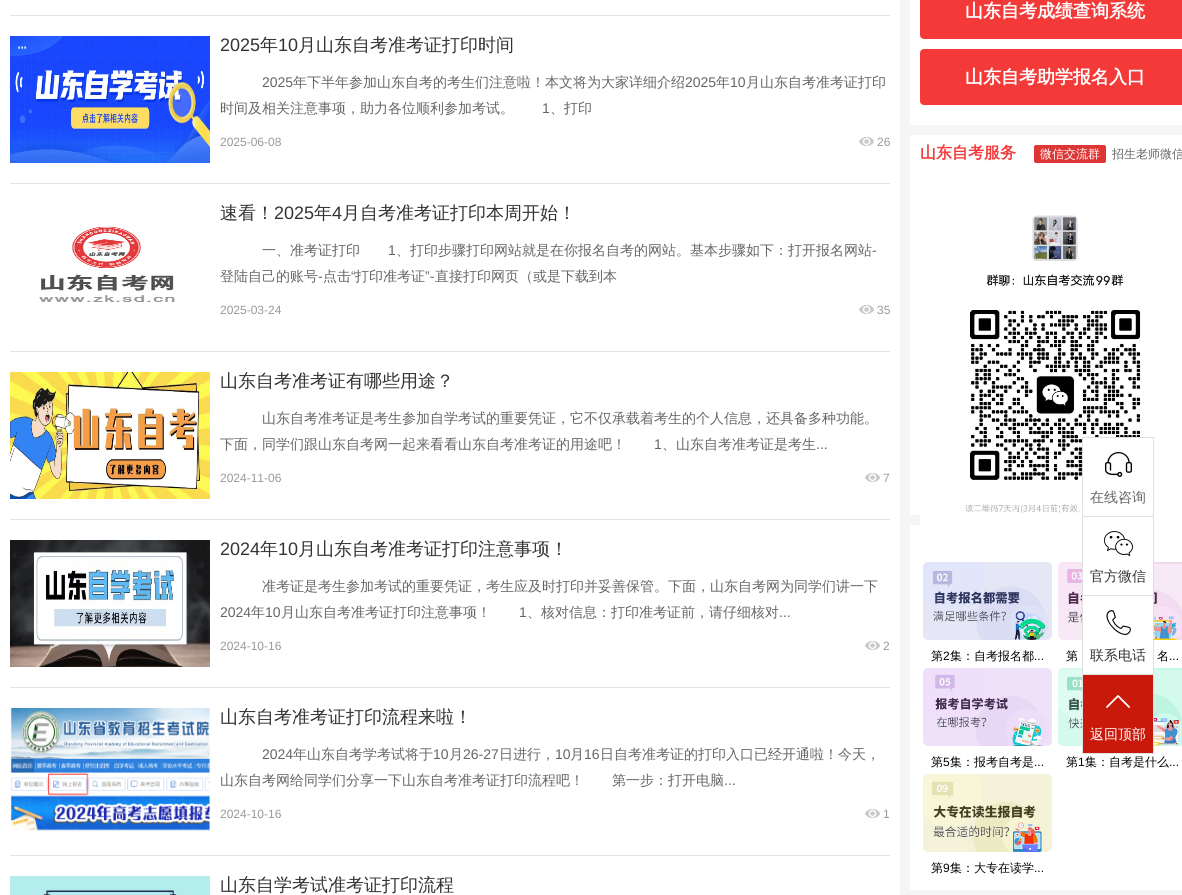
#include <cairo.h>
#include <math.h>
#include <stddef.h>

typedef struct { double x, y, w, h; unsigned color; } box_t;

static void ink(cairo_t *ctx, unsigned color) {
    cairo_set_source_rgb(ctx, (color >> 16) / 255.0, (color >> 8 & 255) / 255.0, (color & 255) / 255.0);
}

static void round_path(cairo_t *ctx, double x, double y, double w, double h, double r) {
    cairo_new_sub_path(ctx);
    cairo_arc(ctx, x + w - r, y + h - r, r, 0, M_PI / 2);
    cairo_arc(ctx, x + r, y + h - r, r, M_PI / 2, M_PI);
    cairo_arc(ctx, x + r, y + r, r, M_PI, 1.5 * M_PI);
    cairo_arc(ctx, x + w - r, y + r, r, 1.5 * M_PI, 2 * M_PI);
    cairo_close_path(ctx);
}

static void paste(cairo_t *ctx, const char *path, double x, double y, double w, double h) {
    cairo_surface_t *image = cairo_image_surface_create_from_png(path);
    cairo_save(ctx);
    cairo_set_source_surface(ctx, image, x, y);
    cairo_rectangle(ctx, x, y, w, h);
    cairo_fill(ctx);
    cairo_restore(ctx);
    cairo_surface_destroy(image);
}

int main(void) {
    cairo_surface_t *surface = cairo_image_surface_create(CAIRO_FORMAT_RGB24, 1182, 895);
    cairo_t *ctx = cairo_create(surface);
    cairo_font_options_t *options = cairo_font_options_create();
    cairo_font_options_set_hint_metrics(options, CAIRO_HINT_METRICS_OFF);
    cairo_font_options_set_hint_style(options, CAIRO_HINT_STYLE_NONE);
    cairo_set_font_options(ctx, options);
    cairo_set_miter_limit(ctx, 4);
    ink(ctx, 0xF5F5F5);
    cairo_paint(ctx);
    {
        static const box_t items[] = {
            {0, 0, 900, 895, 0xFFFFFF},
            {10, 15, 880, 1, 0xE3E3E3},
            {10, 183, 880, 1, 0xE3E3E3},
        };
        for (size_t i = 0; i < sizeof items / sizeof *items; i++) {
            ink(ctx, items[i].color);
            cairo_rectangle(ctx, items[i].x, items[i].y, items[i].w, items[i].h);
            cairo_fill(ctx);
        }
    }
    paste(ctx, "media/1.png", 10, 36, 200, 127);
    cairo_select_font_face(ctx, "Liberation Sans", CAIRO_FONT_SLANT_NORMAL, CAIRO_FONT_WEIGHT_NORMAL);
    cairo_set_font_size(ctx, 18);
    ink(ctx, 0x333333);
    cairo_move_to(ctx, 220, 51);
    cairo_show_text(ctx, "2025");
    cairo_select_font_face(ctx, "WenQuanYi Zen Hei Medium", CAIRO_FONT_SLANT_NORMAL, CAIRO_FONT_WEIGHT_NORMAL);
    cairo_move_to(ctx, 260, 51);
    cairo_show_text(ctx, "年");
    cairo_select_font_face(ctx, "Liberation Sans", CAIRO_FONT_SLANT_NORMAL, CAIRO_FONT_WEIGHT_NORMAL);
    cairo_move_to(ctx, 278, 51);
    cairo_show_text(ctx, "10");
    cairo_select_font_face(ctx, "WenQuanYi Zen Hei Medium", CAIRO_FONT_SLANT_NORMAL, CAIRO_FONT_WEIGHT_NORMAL);
    cairo_move_to(ctx, 298, 51);
    cairo_show_text(ctx, "月山东自考准考证打印时间");
    cairo_select_font_face(ctx, "Liberation Sans", CAIRO_FONT_SLANT_NORMAL, CAIRO_FONT_WEIGHT_NORMAL);
    cairo_set_font_size(ctx, 14);
    ink(ctx, 0x666666);
    cairo_move_to(ctx, 262, 87);
    cairo_show_text(ctx, "2025");
    cairo_select_font_face(ctx, "WenQuanYi Zen Hei Medium", CAIRO_FONT_SLANT_NORMAL, CAIRO_FONT_WEIGHT_NORMAL);
    cairo_move_to(ctx, 293, 87);
    cairo_show_text(ctx, "年下半年参加山东自考的考生们注意啦！本文将为大家详细介绍");
    cairo_select_font_face(ctx, "Liberation Sans", CAIRO_FONT_SLANT_NORMAL, CAIRO_FONT_WEIGHT_NORMAL);
    cairo_move_to(ctx, 685, 87);
    cairo_show_text(ctx, "2025");
    cairo_select_font_face(ctx, "WenQuanYi Zen Hei Medium", CAIRO_FONT_SLANT_NORMAL, CAIRO_FONT_WEIGHT_NORMAL);
    cairo_move_to(ctx, 716, 87);
    cairo_show_text(ctx, "年");
    cairo_select_font_face(ctx, "Liberation Sans", CAIRO_FONT_SLANT_NORMAL, CAIRO_FONT_WEIGHT_NORMAL);
    cairo_move_to(ctx, 730, 87);
    cairo_show_text(ctx, "10");
    cairo_select_font_face(ctx, "WenQuanYi Zen Hei Medium", CAIRO_FONT_SLANT_NORMAL, CAIRO_FONT_WEIGHT_NORMAL);
    cairo_move_to(ctx, 746, 87);
    cairo_show_text(ctx, "月山东自考准考证打印");
    cairo_move_to(ctx, 220, 113);
    cairo_show_text(ctx, "时间及相关注意事项，助力各位顺利参加考试。");
    cairo_select_font_face(ctx, "Liberation Sans", CAIRO_FONT_SLANT_NORMAL, CAIRO_FONT_WEIGHT_NORMAL);
    cairo_move_to(ctx, 542, 113);
    cairo_show_text(ctx, "1");
    cairo_select_font_face(ctx, "WenQuanYi Zen Hei Medium", CAIRO_FONT_SLANT_NORMAL, CAIRO_FONT_WEIGHT_NORMAL);
    cairo_move_to(ctx, 550, 113);
    cairo_show_text(ctx, "、打印");
    cairo_select_font_face(ctx, "Liberation Sans", CAIRO_FONT_SLANT_NORMAL, CAIRO_FONT_WEIGHT_NORMAL);
    cairo_set_font_size(ctx, 12);
    ink(ctx, 0x999999);
    cairo_move_to(ctx, 220, 146);
    cairo_show_text(ctx, "2025-06-08");
    paste(ctx, "media/2.png", 859, 137, 15, 9);
    cairo_move_to(ctx, 877, 146);
    cairo_show_text(ctx, "26");
    ink(ctx, 0xE3E3E3);
    cairo_rectangle(ctx, 10, 351, 880, 1);
    cairo_fill(ctx);
    cairo_select_font_face(ctx, "WenQuanYi Zen Hei Medium", CAIRO_FONT_SLANT_NORMAL, CAIRO_FONT_WEIGHT_NORMAL);
    cairo_set_font_size(ctx, 18);
    ink(ctx, 0x333333);
    cairo_move_to(ctx, 220, 219);
    cairo_show_text(ctx, "速看！");
    cairo_select_font_face(ctx, "Liberation Sans", CAIRO_FONT_SLANT_NORMAL, CAIRO_FONT_WEIGHT_NORMAL);
    cairo_move_to(ctx, 274, 219);
    cairo_show_text(ctx, "2025");
    cairo_select_font_face(ctx, "WenQuanYi Zen Hei Medium", CAIRO_FONT_SLANT_NORMAL, CAIRO_FONT_WEIGHT_NORMAL);
    cairo_move_to(ctx, 314, 219);
    cairo_show_text(ctx, "年");
    cairo_select_font_face(ctx, "Liberation Sans", CAIRO_FONT_SLANT_NORMAL, CAIRO_FONT_WEIGHT_NORMAL);
    cairo_move_to(ctx, 332, 219);
    cairo_show_text(ctx, "4");
    cairo_select_font_face(ctx, "WenQuanYi Zen Hei Medium", CAIRO_FONT_SLANT_NORMAL, CAIRO_FONT_WEIGHT_NORMAL);
    cairo_move_to(ctx, 342, 219);
    cairo_show_text(ctx, "月自考准考证打印本周开始！");
    paste(ctx, "media/3.png", 39, 226, 136, 76);
    cairo_set_font_size(ctx, 14);
    ink(ctx, 0x666666);
    cairo_move_to(ctx, 262, 255);
    cairo_show_text(ctx, "一、准考证打印");
    cairo_select_font_face(ctx, "Liberation Sans", CAIRO_FONT_SLANT_NORMAL, CAIRO_FONT_WEIGHT_NORMAL);
    cairo_move_to(ctx, 388, 255);
    cairo_show_text(ctx, "1");
    cairo_select_font_face(ctx, "WenQuanYi Zen Hei Medium", CAIRO_FONT_SLANT_NORMAL, CAIRO_FONT_WEIGHT_NORMAL);
    cairo_move_to(ctx, 396, 255);
    cairo_show_text(ctx, "、打印步骤打印网站就是在你报名自考的网站。基本步骤如下：打开报名网站");
    cairo_select_font_face(ctx, "Liberation Sans", CAIRO_FONT_SLANT_NORMAL, CAIRO_FONT_WEIGHT_NORMAL);
    cairo_move_to(ctx, 872, 255);
    cairo_show_text(ctx, "-");
    cairo_select_font_face(ctx, "WenQuanYi Zen Hei Medium", CAIRO_FONT_SLANT_NORMAL, CAIRO_FONT_WEIGHT_NORMAL);
    cairo_move_to(ctx, 220, 281);
    cairo_show_text(ctx, "登陆自己的账号");
    cairo_select_font_face(ctx, "Liberation Sans", CAIRO_FONT_SLANT_NORMAL, CAIRO_FONT_WEIGHT_NORMAL);
    cairo_move_to(ctx, 318, 281);
    cairo_show_text(ctx, "-");
    cairo_select_font_face(ctx, "WenQuanYi Zen Hei Medium", CAIRO_FONT_SLANT_NORMAL, CAIRO_FONT_WEIGHT_NORMAL);
    cairo_move_to(ctx, 323, 281);
    cairo_show_text(ctx, "点击");
    cairo_select_font_face(ctx, "Liberation Sans", CAIRO_FONT_SLANT_NORMAL, CAIRO_FONT_WEIGHT_NORMAL);
    cairo_move_to(ctx, 351, 281);
    cairo_show_text(ctx, "“");
    cairo_select_font_face(ctx, "WenQuanYi Zen Hei Medium", CAIRO_FONT_SLANT_NORMAL, CAIRO_FONT_WEIGHT_NORMAL);
    cairo_move_to(ctx, 355, 281);
    cairo_show_text(ctx, "打印准考证");
    cairo_select_font_face(ctx, "Liberation Sans", CAIRO_FONT_SLANT_NORMAL, CAIRO_FONT_WEIGHT_NORMAL);
    cairo_move_to(ctx, 425, 281);
    cairo_show_text(ctx, "”-");
    cairo_select_font_face(ctx, "WenQuanYi Zen Hei Medium", CAIRO_FONT_SLANT_NORMAL, CAIRO_FONT_WEIGHT_NORMAL);
    cairo_move_to(ctx, 435, 281);
    cairo_show_text(ctx, "直接打印网页（或是下载到本");
    cairo_select_font_face(ctx, "Liberation Sans", CAIRO_FONT_SLANT_NORMAL, CAIRO_FONT_WEIGHT_NORMAL);
    cairo_set_font_size(ctx, 12);
    ink(ctx, 0x999999);
    cairo_move_to(ctx, 220, 314);
    cairo_show_text(ctx, "2025-03-24");
    paste(ctx, "media/2.png", 859, 305, 15, 9);
    cairo_move_to(ctx, 877, 314);
    cairo_show_text(ctx, "35");
    ink(ctx, 0xE3E3E3);
    cairo_rectangle(ctx, 10, 519, 880, 1);
    cairo_fill(ctx);
    paste(ctx, "media/4.png", 10, 372, 200, 127);
    cairo_select_font_face(ctx, "WenQuanYi Zen Hei Medium", CAIRO_FONT_SLANT_NORMAL, CAIRO_FONT_WEIGHT_NORMAL);
    cairo_set_font_size(ctx, 18);
    ink(ctx, 0x333333);
    cairo_move_to(ctx, 220, 387);
    cairo_show_text(ctx, "山东自考准考证有哪些用途？");
    cairo_set_font_size(ctx, 14);
    ink(ctx, 0x666666);
    cairo_move_to(ctx, 262, 423);
    cairo_show_text(ctx, "山东自考准考证是考生参加自学考试的重要凭证，它不仅承载着考生的个人信息，还具备多种功能。");
    cairo_move_to(ctx, 220, 449);
    cairo_show_text(ctx, "下面，同学们跟山东自考网一起来看看山东自考准考证的用途吧！");
    cairo_select_font_face(ctx, "Liberation Sans", CAIRO_FONT_SLANT_NORMAL, CAIRO_FONT_WEIGHT_NORMAL);
    cairo_move_to(ctx, 654, 449);
    cairo_show_text(ctx, "1");
    cairo_select_font_face(ctx, "WenQuanYi Zen Hei Medium", CAIRO_FONT_SLANT_NORMAL, CAIRO_FONT_WEIGHT_NORMAL);
    cairo_move_to(ctx, 662, 449);
    cairo_show_text(ctx, "、山东自考准考证是考生");
    cairo_select_font_face(ctx, "Liberation Sans", CAIRO_FONT_SLANT_NORMAL, CAIRO_FONT_WEIGHT_NORMAL);
    cairo_move_to(ctx, 816, 449);
    cairo_show_text(ctx, "...");
    cairo_set_font_size(ctx, 12);
    ink(ctx, 0x999999);
    cairo_move_to(ctx, 220, 482);
    cairo_show_text(ctx, "2024-11-06");
    paste(ctx, "media/2.png", 865, 473, 15, 9);
    cairo_move_to(ctx, 883, 482);
    cairo_show_text(ctx, "7");
    ink(ctx, 0xE3E3E3);
    cairo_rectangle(ctx, 10, 687, 880, 1);
    cairo_fill(ctx);
    paste(ctx, "media/5.png", 10, 540, 200, 127);
    cairo_set_font_size(ctx, 18);
    ink(ctx, 0x333333);
    cairo_move_to(ctx, 220, 555);
    cairo_show_text(ctx, "2024");
    cairo_select_font_face(ctx, "WenQuanYi Zen Hei Medium", CAIRO_FONT_SLANT_NORMAL, CAIRO_FONT_WEIGHT_NORMAL);
    cairo_move_to(ctx, 260, 555);
    cairo_show_text(ctx, "年");
    cairo_select_font_face(ctx, "Liberation Sans", CAIRO_FONT_SLANT_NORMAL, CAIRO_FONT_WEIGHT_NORMAL);
    cairo_move_to(ctx, 278, 555);
    cairo_show_text(ctx, "10");
    cairo_select_font_face(ctx, "WenQuanYi Zen Hei Medium", CAIRO_FONT_SLANT_NORMAL, CAIRO_FONT_WEIGHT_NORMAL);
    cairo_move_to(ctx, 298, 555);
    cairo_show_text(ctx, "月山东自考准考证打印注意事项！");
    cairo_set_font_size(ctx, 14);
    ink(ctx, 0x666666);
    cairo_move_to(ctx, 262, 591);
    cairo_show_text(ctx, "准考证是考生参加考试的重要凭证，考生应及时打印并妥善保管。下面，山东自考网为同学们讲一下");
    cairo_select_font_face(ctx, "Liberation Sans", CAIRO_FONT_SLANT_NORMAL, CAIRO_FONT_WEIGHT_NORMAL);
    cairo_move_to(ctx, 220, 617);
    cairo_show_text(ctx, "2024");
    cairo_select_font_face(ctx, "WenQuanYi Zen Hei Medium", CAIRO_FONT_SLANT_NORMAL, CAIRO_FONT_WEIGHT_NORMAL);
    cairo_move_to(ctx, 251, 617);
    cairo_show_text(ctx, "年");
    cairo_select_font_face(ctx, "Liberation Sans", CAIRO_FONT_SLANT_NORMAL, CAIRO_FONT_WEIGHT_NORMAL);
    cairo_move_to(ctx, 265, 617);
    cairo_show_text(ctx, "10");
    cairo_select_font_face(ctx, "WenQuanYi Zen Hei Medium", CAIRO_FONT_SLANT_NORMAL, CAIRO_FONT_WEIGHT_NORMAL);
    cairo_move_to(ctx, 281, 617);
    cairo_show_text(ctx, "月山东自考准考证打印注意事项！");
    cairo_select_font_face(ctx, "Liberation Sans", CAIRO_FONT_SLANT_NORMAL, CAIRO_FONT_WEIGHT_NORMAL);
    cairo_move_to(ctx, 519, 617);
    cairo_show_text(ctx, "1");
    cairo_select_font_face(ctx, "WenQuanYi Zen Hei Medium", CAIRO_FONT_SLANT_NORMAL, CAIRO_FONT_WEIGHT_NORMAL);
    cairo_move_to(ctx, 527, 617);
    cairo_show_text(ctx, "、核对信息：打印准考证前，请仔细核对");
    cairo_select_font_face(ctx, "Liberation Sans", CAIRO_FONT_SLANT_NORMAL, CAIRO_FONT_WEIGHT_NORMAL);
    cairo_move_to(ctx, 779, 617);
    cairo_show_text(ctx, "...");
    cairo_set_font_size(ctx, 12);
    ink(ctx, 0x999999);
    cairo_move_to(ctx, 220, 650);
    cairo_show_text(ctx, "2024-10-16");
    paste(ctx, "media/2.png", 865, 641, 15, 9);
    cairo_move_to(ctx, 883, 650);
    cairo_show_text(ctx, "2");
    ink(ctx, 0xE3E3E3);
    cairo_rectangle(ctx, 10, 855, 880, 1);
    cairo_fill(ctx);
    paste(ctx, "media/6.png", 10, 708, 200, 123);
    cairo_select_font_face(ctx, "WenQuanYi Zen Hei Medium", CAIRO_FONT_SLANT_NORMAL, CAIRO_FONT_WEIGHT_NORMAL);
    cairo_set_font_size(ctx, 18);
    ink(ctx, 0x333333);
    cairo_move_to(ctx, 220, 723);
    cairo_show_text(ctx, "山东自考准考证打印流程来啦！");
    cairo_select_font_face(ctx, "Liberation Sans", CAIRO_FONT_SLANT_NORMAL, CAIRO_FONT_WEIGHT_NORMAL);
    cairo_set_font_size(ctx, 14);
    ink(ctx, 0x666666);
    cairo_move_to(ctx, 262, 759);
    cairo_show_text(ctx, "2024");
    cairo_select_font_face(ctx, "WenQuanYi Zen Hei Medium", CAIRO_FONT_SLANT_NORMAL, CAIRO_FONT_WEIGHT_NORMAL);
    cairo_move_to(ctx, 293, 759);
    cairo_show_text(ctx, "年山东自考学考试将于");
    cairo_select_font_face(ctx, "Liberation Sans", CAIRO_FONT_SLANT_NORMAL, CAIRO_FONT_WEIGHT_NORMAL);
    cairo_move_to(ctx, 433, 759);
    cairo_show_text(ctx, "10");
    cairo_select_font_face(ctx, "WenQuanYi Zen Hei Medium", CAIRO_FONT_SLANT_NORMAL, CAIRO_FONT_WEIGHT_NORMAL);
    cairo_move_to(ctx, 449, 759);
    cairo_show_text(ctx, "月");
    cairo_select_font_face(ctx, "Liberation Sans", CAIRO_FONT_SLANT_NORMAL, CAIRO_FONT_WEIGHT_NORMAL);
    cairo_move_to(ctx, 463, 759);
    cairo_show_text(ctx, "26-27");
    cairo_select_font_face(ctx, "WenQuanYi Zen Hei Medium", CAIRO_FONT_SLANT_NORMAL, CAIRO_FONT_WEIGHT_NORMAL);
    cairo_move_to(ctx, 499, 759);
    cairo_show_text(ctx, "日进行，");
    cairo_select_font_face(ctx, "Liberation Sans", CAIRO_FONT_SLANT_NORMAL, CAIRO_FONT_WEIGHT_NORMAL);
    cairo_move_to(ctx, 555, 759);
    cairo_show_text(ctx, "10");
    cairo_select_font_face(ctx, "WenQuanYi Zen Hei Medium", CAIRO_FONT_SLANT_NORMAL, CAIRO_FONT_WEIGHT_NORMAL);
    cairo_move_to(ctx, 570, 759);
    cairo_show_text(ctx, "月");
    cairo_select_font_face(ctx, "Liberation Sans", CAIRO_FONT_SLANT_NORMAL, CAIRO_FONT_WEIGHT_NORMAL);
    cairo_move_to(ctx, 584, 759);
    cairo_show_text(ctx, "16");
    cairo_select_font_face(ctx, "WenQuanYi Zen Hei Medium", CAIRO_FONT_SLANT_NORMAL, CAIRO_FONT_WEIGHT_NORMAL);
    cairo_move_to(ctx, 600, 759);
    cairo_show_text(ctx, "日自考准考证的打印入口已经开通啦！今天，");
    cairo_move_to(ctx, 220, 785);
    cairo_show_text(ctx, "山东自考网给同学们分享一下山东自考准考证打印流程吧！　　第一步：打开电脑");
    cairo_select_font_face(ctx, "Liberation Sans", CAIRO_FONT_SLANT_NORMAL, CAIRO_FONT_WEIGHT_NORMAL);
    cairo_move_to(ctx, 724, 785);
    cairo_show_text(ctx, "...");
    cairo_set_font_size(ctx, 12);
    ink(ctx, 0x999999);
    cairo_move_to(ctx, 220, 818);
    cairo_show_text(ctx, "2024-10-16");
    paste(ctx, "media/2.png", 865, 809, 15, 9);
    cairo_move_to(ctx, 883, 818);
    cairo_show_text(ctx, "1");
    paste(ctx, "media/7.png", 10, 876, 200, 19);
    cairo_select_font_face(ctx, "WenQuanYi Zen Hei Medium", CAIRO_FONT_SLANT_NORMAL, CAIRO_FONT_WEIGHT_NORMAL);
    cairo_set_font_size(ctx, 18);
    ink(ctx, 0x333333);
    cairo_move_to(ctx, 220, 891);
    cairo_show_text(ctx, "山东自学考试准考证打印流程");
    ink(ctx, 0xFFFFFF);
    cairo_rectangle(ctx, 910, 0, 272, 125);
    cairo_fill(ctx);
    ink(ctx, 0xF43A39);
    round_path(ctx, 920, -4, 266, 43, 4);
    cairo_fill(ctx);
    cairo_select_font_face(ctx, "WenQuanYi Zen Hei", CAIRO_FONT_SLANT_NORMAL, CAIRO_FONT_WEIGHT_BOLD);
    ink(ctx, 0xFFFFFF);
    cairo_move_to(ctx, 965, 17);
    cairo_show_text(ctx, "山东自考成绩查询系统");
    ink(ctx, 0xF43A39);
    round_path(ctx, 920, 49, 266, 56, 4);
    cairo_fill(ctx);
    ink(ctx, 0xFFFFFF);
    cairo_move_to(ctx, 965, 83);
    cairo_show_text(ctx, "山东自考助学报名入口");
    cairo_rectangle(ctx, 910, 135, 272, 380);
    cairo_fill(ctx);
    cairo_set_font_size(ctx, 16);
    ink(ctx, 0xF33A39);
    cairo_move_to(ctx, 920, 158);
    cairo_show_text(ctx, "山东自考服务");
    ink(ctx, 0xDD3635);
    round_path(ctx, 1034, 145, 72, 18, 2);
    cairo_fill(ctx);
    cairo_select_font_face(ctx, "WenQuanYi Zen Hei Medium", CAIRO_FONT_SLANT_NORMAL, CAIRO_FONT_WEIGHT_NORMAL);
    cairo_set_font_size(ctx, 12);
    ink(ctx, 0xFFFFFF);
    cairo_move_to(ctx, 1040, 158);
    cairo_show_text(ctx, "微信交流群");
    ink(ctx, 0x666666);
    cairo_move_to(ctx, 1112, 158);
    cairo_show_text(ctx, "招生老师微信");
    ink(ctx, 0xFFFFFF);
    cairo_rectangle(ctx, 910, 525, 272, 365);
    cairo_fill(ctx);
    paste(ctx, "media/8.png", 920, 215, 262, 336);
    paste(ctx, "media/9.png", 923, 562, 129, 78);
    ink(ctx, 0x000000);
    cairo_move_to(ctx, 931, 660);
    cairo_show_text(ctx, "第");
    cairo_select_font_face(ctx, "Liberation Sans", CAIRO_FONT_SLANT_NORMAL, CAIRO_FONT_WEIGHT_NORMAL);
    cairo_move_to(ctx, 943, 660);
    cairo_show_text(ctx, "2");
    cairo_select_font_face(ctx, "WenQuanYi Zen Hei Medium", CAIRO_FONT_SLANT_NORMAL, CAIRO_FONT_WEIGHT_NORMAL);
    cairo_move_to(ctx, 950, 660);
    cairo_show_text(ctx, "集：自考报名都");
    cairo_select_font_face(ctx, "Liberation Sans", CAIRO_FONT_SLANT_NORMAL, CAIRO_FONT_WEIGHT_NORMAL);
    cairo_move_to(ctx, 1034, 660);
    cairo_show_text(ctx, "...");
    paste(ctx, "media/10.png", 1058, 562, 124, 78);
    cairo_select_font_face(ctx, "WenQuanYi Zen Hei Medium", CAIRO_FONT_SLANT_NORMAL, CAIRO_FONT_WEIGHT_NORMAL);
    cairo_move_to(ctx, 1066, 660);
    cairo_show_text(ctx, "第");
    cairo_move_to(ctx, 1157, 660);
    cairo_show_text(ctx, "名");
    cairo_select_font_face(ctx, "Liberation Sans", CAIRO_FONT_SLANT_NORMAL, CAIRO_FONT_WEIGHT_NORMAL);
    cairo_move_to(ctx, 1169, 660);
    cairo_show_text(ctx, "...");
    paste(ctx, "media/11.png", 923, 668, 129, 78);
    cairo_select_font_face(ctx, "WenQuanYi Zen Hei Medium", CAIRO_FONT_SLANT_NORMAL, CAIRO_FONT_WEIGHT_NORMAL);
    cairo_move_to(ctx, 931, 766);
    cairo_show_text(ctx, "第");
    cairo_select_font_face(ctx, "Liberation Sans", CAIRO_FONT_SLANT_NORMAL, CAIRO_FONT_WEIGHT_NORMAL);
    cairo_move_to(ctx, 943, 766);
    cairo_show_text(ctx, "5");
    cairo_select_font_face(ctx, "WenQuanYi Zen Hei Medium", CAIRO_FONT_SLANT_NORMAL, CAIRO_FONT_WEIGHT_NORMAL);
    cairo_move_to(ctx, 950, 766);
    cairo_show_text(ctx, "集：报考自考是");
    cairo_select_font_face(ctx, "Liberation Sans", CAIRO_FONT_SLANT_NORMAL, CAIRO_FONT_WEIGHT_NORMAL);
    cairo_move_to(ctx, 1034, 766);
    cairo_show_text(ctx, "...");
    paste(ctx, "media/12.png", 1058, 668, 124, 78);
    cairo_select_font_face(ctx, "WenQuanYi Zen Hei Medium", CAIRO_FONT_SLANT_NORMAL, CAIRO_FONT_WEIGHT_NORMAL);
    cairo_move_to(ctx, 1066, 766);
    cairo_show_text(ctx, "第");
    cairo_select_font_face(ctx, "Liberation Sans", CAIRO_FONT_SLANT_NORMAL, CAIRO_FONT_WEIGHT_NORMAL);
    cairo_move_to(ctx, 1078, 766);
    cairo_show_text(ctx, "1");
    cairo_select_font_face(ctx, "WenQuanYi Zen Hei Medium", CAIRO_FONT_SLANT_NORMAL, CAIRO_FONT_WEIGHT_NORMAL);
    cairo_move_to(ctx, 1085, 766);
    cairo_show_text(ctx, "集：自考是什么");
    cairo_select_font_face(ctx, "Liberation Sans", CAIRO_FONT_SLANT_NORMAL, CAIRO_FONT_WEIGHT_NORMAL);
    cairo_move_to(ctx, 1169, 766);
    cairo_show_text(ctx, "...");
    paste(ctx, "media/13.png", 923, 774, 129, 78);
    cairo_select_font_face(ctx, "WenQuanYi Zen Hei Medium", CAIRO_FONT_SLANT_NORMAL, CAIRO_FONT_WEIGHT_NORMAL);
    cairo_move_to(ctx, 931, 872);
    cairo_show_text(ctx, "第");
    cairo_select_font_face(ctx, "Liberation Sans", CAIRO_FONT_SLANT_NORMAL, CAIRO_FONT_WEIGHT_NORMAL);
    cairo_move_to(ctx, 943, 872);
    cairo_show_text(ctx, "9");
    cairo_select_font_face(ctx, "WenQuanYi Zen Hei Medium", CAIRO_FONT_SLANT_NORMAL, CAIRO_FONT_WEIGHT_NORMAL);
    cairo_move_to(ctx, 950, 872);
    cairo_show_text(ctx, "集：大专在读学");
    cairo_select_font_face(ctx, "Liberation Sans", CAIRO_FONT_SLANT_NORMAL, CAIRO_FONT_WEIGHT_NORMAL);
    cairo_move_to(ctx, 1034, 872);
    cairo_show_text(ctx, "...");
    {
        static const box_t items[] = {
            {1083, 438, 70, 236, 0xFFFFFF},
            {1082, 437, 72, 1, 0xE0E0E0},
            {1153, 437, 1, 317, 0xE0E0E0},
            {1082, 437, 1, 317, 0xE0E0E0},
            {1083, 516, 70, 1, 0xE0E0E0},
        };
        for (size_t i = 0; i < sizeof items / sizeof *items; i++) {
            ink(ctx, items[i].color);
            cairo_rectangle(ctx, items[i].x, items[i].y, items[i].w, items[i].h);
            cairo_fill(ctx);
        }
    }
    paste(ctx, "media/14.png", 1105, 452, 27, 25);
    cairo_select_font_face(ctx, "WenQuanYi Zen Hei Medium", CAIRO_FONT_SLANT_NORMAL, CAIRO_FONT_WEIGHT_NORMAL);
    cairo_set_font_size(ctx, 14);
    ink(ctx, 0x666666);
    cairo_move_to(ctx, 1090, 502);
    cairo_show_text(ctx, "在线咨询");
    ink(ctx, 0xE0E0E0);
    cairo_rectangle(ctx, 1083, 595, 70, 1);
    cairo_fill(ctx);
    paste(ctx, "media/15.png", 1104, 531, 29, 25);
    ink(ctx, 0x333333);
    cairo_move_to(ctx, 1090, 581);
    cairo_show_text(ctx, "官方微信");
    ink(ctx, 0xE0E0E0);
    cairo_rectangle(ctx, 1083, 674, 70, 1);
    cairo_fill(ctx);
    paste(ctx, "media/16.png", 1106, 610, 25, 25);
    ink(ctx, 0x333333);
    cairo_move_to(ctx, 1090, 660);
    cairo_show_text(ctx, "联系电话");
    ink(ctx, 0xC8190A);
    cairo_rectangle(ctx, 1083, 675, 70, 78);
    cairo_fill(ctx);
    ink(ctx, 0xE0E0E0);
    cairo_rectangle(ctx, 1083, 753, 70, 1);
    cairo_fill(ctx);
    paste(ctx, "media/17.png", 1106, 695, 24, 13);
    ink(ctx, 0xFFFFFF);
    cairo_move_to(ctx, 1090, 739);
    cairo_show_text(ctx, "返回顶部");
    cairo_surface_write_to_png(surface, "image.png");
    cairo_font_options_destroy(options);
    cairo_destroy(ctx);
    cairo_surface_destroy(surface);
    return 0;
}
